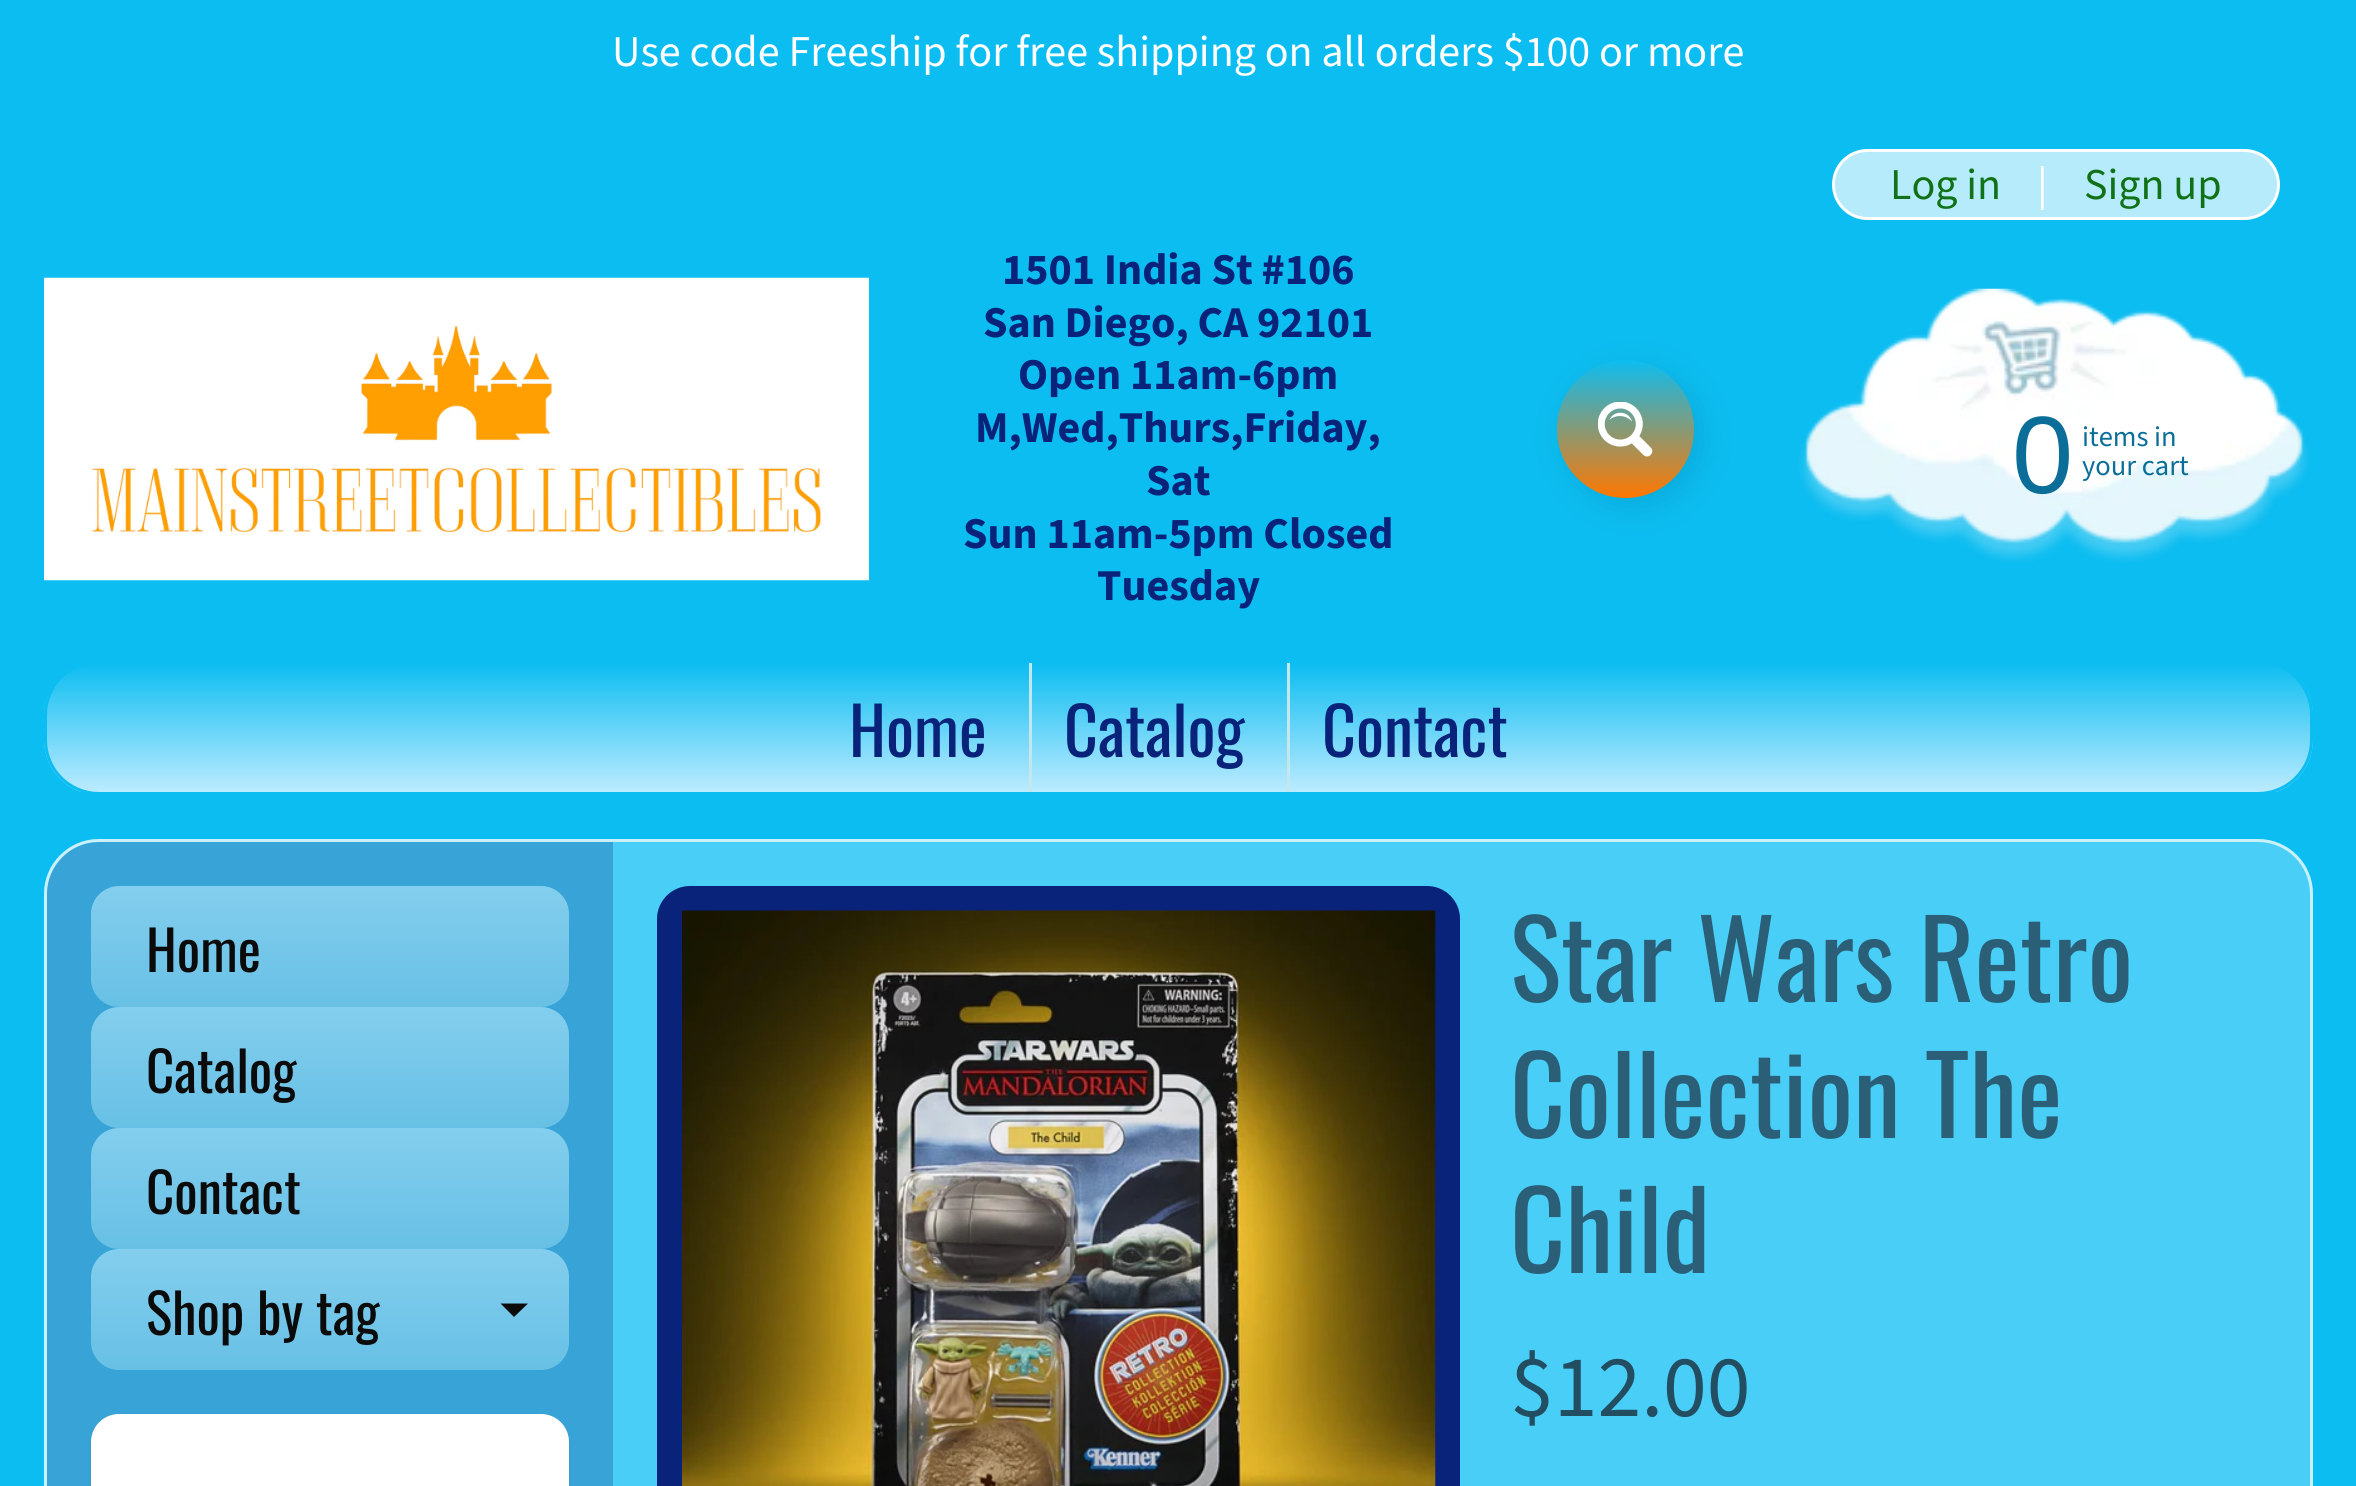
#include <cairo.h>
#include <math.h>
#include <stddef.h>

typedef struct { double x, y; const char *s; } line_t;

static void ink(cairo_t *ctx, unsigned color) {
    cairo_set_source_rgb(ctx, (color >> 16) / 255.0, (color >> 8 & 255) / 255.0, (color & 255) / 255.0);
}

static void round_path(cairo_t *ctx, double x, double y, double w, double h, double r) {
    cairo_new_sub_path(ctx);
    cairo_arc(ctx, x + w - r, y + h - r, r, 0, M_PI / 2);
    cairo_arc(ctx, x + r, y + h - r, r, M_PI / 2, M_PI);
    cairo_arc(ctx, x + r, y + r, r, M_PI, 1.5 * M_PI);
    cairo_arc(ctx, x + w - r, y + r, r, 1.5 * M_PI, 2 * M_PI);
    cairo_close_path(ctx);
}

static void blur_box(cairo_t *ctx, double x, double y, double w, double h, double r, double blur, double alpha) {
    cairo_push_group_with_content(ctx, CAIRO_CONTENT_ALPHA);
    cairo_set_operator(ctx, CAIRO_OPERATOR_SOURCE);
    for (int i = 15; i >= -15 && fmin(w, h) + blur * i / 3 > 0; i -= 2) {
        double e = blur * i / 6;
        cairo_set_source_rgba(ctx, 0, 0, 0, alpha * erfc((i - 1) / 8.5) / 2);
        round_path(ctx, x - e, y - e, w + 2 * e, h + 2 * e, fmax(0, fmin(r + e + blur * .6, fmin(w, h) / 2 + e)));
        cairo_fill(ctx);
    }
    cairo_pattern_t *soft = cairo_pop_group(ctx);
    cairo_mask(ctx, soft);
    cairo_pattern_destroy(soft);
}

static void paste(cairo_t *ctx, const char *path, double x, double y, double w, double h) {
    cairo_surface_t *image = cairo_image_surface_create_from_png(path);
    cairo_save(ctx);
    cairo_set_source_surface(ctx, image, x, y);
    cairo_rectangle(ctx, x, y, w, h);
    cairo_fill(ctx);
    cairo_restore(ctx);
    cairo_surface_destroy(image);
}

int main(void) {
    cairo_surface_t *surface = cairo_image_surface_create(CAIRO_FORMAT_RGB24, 2356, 1486);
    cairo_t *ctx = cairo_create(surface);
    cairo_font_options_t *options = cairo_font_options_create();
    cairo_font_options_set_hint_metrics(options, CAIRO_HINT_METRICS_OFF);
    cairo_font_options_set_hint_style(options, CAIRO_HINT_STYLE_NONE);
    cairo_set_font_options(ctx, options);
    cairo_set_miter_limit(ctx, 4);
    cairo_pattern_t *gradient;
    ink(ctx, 0x0CBDF1);
    cairo_paint(ctx);
    cairo_select_font_face(ctx, "Source Sans Pro", CAIRO_FONT_SLANT_NORMAL, CAIRO_FONT_WEIGHT_NORMAL);
    cairo_set_font_size(ctx, 44);
    ink(ctx, 0xFFFFFF);
    cairo_move_to(ctx, 612, 66);
    cairo_show_text(ctx, "Use code Freeship for free shipping on all orders $100 or more");
    paste(ctx, "media/1.png", 44, 277, 825, 304);
    cairo_select_font_face(ctx, "Source Sans Pro", CAIRO_FONT_SLANT_NORMAL, CAIRO_FONT_WEIGHT_BOLD);
    ink(ctx, 0x082379);
    {
        static const line_t items[] = {
            {1002, 284, "1501 India St #106"},
            {983, 337, "San Diego, CA 92101"},
            {1018, 389, "Open 11am-6pm"},
            {975, 442, "M,Wed,Thurs,Friday,"},
            {1146, 495, "Sat"},
            {963, 548, "Sun 11am-5pm Closed"},
            {1097, 600, "Tuesday"},
        };
        for (size_t i = 0; i < sizeof items / sizeof *items; i++) {
            cairo_move_to(ctx, items[i].x, items[i].y);
            cairo_show_text(ctx, items[i].s);
        }
    }
    ink(ctx, 0xB6EBFB);
    round_path(ctx, 1833.5, 150.5, 445, 68, 34);
    cairo_fill_preserve(ctx);
    ink(ctx, 0xFFFFFF);
    cairo_set_line_width(ctx, 3);
    cairo_stroke(ctx);
    cairo_select_font_face(ctx, "Source Sans Pro", CAIRO_FONT_SLANT_NORMAL, CAIRO_FONT_WEIGHT_NORMAL);
    ink(ctx, 0x107116);
    cairo_move_to(ctx, 1890, 199);
    cairo_show_text(ctx, "Log in");
    ink(ctx, 0xFFFFFF);
    cairo_move_to(ctx, 2037, 199);
    cairo_show_text(ctx, "|");
    ink(ctx, 0x107116);
    cairo_move_to(ctx, 2084, 199);
    cairo_show_text(ctx, "Sign up");
    ink(ctx, 0x000000);
    blur_box(ctx, 1565, 369, 137, 137, 68.5, 16.5, 0.1);
    gradient = cairo_pattern_create_linear(1625, 360, 1625, 498);
    cairo_pattern_add_color_stop_rgba(gradient, 0, 0.047, 0.741, 0.945, 1);
    cairo_pattern_add_color_stop_rgba(gradient, 1, 1, 0.467, 0, 1);
    cairo_set_source(ctx, gradient);
    cairo_pattern_destroy(gradient);
    round_path(ctx, 1557, 360, 137, 138, 68.5);
    cairo_fill(ctx);
    paste(ctx, "media/2.png", 1598, 402, 55, 55);
    paste(ctx, "media/3.png", 1799, 288, 510, 274);
    cairo_select_font_face(ctx, "Liberation Sans", CAIRO_FONT_SLANT_NORMAL, CAIRO_FONT_WEIGHT_NORMAL);
    cairo_set_font_size(ctx, 110);
    ink(ctx, 0x0A6E99);
    cairo_move_to(ctx, 2012, 493);
    cairo_show_text(ctx, "0");
    cairo_select_font_face(ctx, "Source Sans Pro", CAIRO_FONT_SLANT_NORMAL, CAIRO_FONT_WEIGHT_NORMAL);
    cairo_set_font_size(ctx, 28.5);
    cairo_move_to(ctx, 2082, 446);
    cairo_show_text(ctx, "items in");
    cairo_move_to(ctx, 2082, 475);
    cairo_show_text(ctx, "your cart");
    cairo_save(ctx);
    round_path(ctx, 44, 660, 2269, 135, 55);
    cairo_clip(ctx);
    gradient = cairo_pattern_create_linear(1178, 663, 1178, 792);
    cairo_pattern_add_color_stop_rgba(gradient, 0, 0.047, 0.741, 0.945, 1);
    cairo_pattern_add_color_stop_rgba(gradient, 1, 0.737, 0.922, 1, 1);
    cairo_set_source(ctx, gradient);
    cairo_pattern_destroy(gradient);
    cairo_rectangle(ctx, 44, 663, 2269, 129);
    cairo_fill(ctx);
    cairo_restore(ctx);
    round_path(ctx, 45.5, 661.5, 2266, 132, 53.5);
    ink(ctx, 0x0CBDF1);
    cairo_stroke(ctx);
    cairo_select_font_face(ctx, "Oswald", CAIRO_FONT_SLANT_NORMAL, CAIRO_FONT_WEIGHT_NORMAL);
    cairo_set_font_size(ctx, 66);
    ink(ctx, 0x082379);
    cairo_move_to(ctx, 849, 757);
    cairo_show_text(ctx, "Home");
    ink(ctx, 0xC3E7EA);
    cairo_rectangle(ctx, 1029, 663, 3, 129);
    cairo_fill(ctx);
    ink(ctx, 0x082379);
    cairo_move_to(ctx, 1064, 757);
    cairo_show_text(ctx, "Catalog");
    ink(ctx, 0xC3E7EA);
    cairo_rectangle(ctx, 1287, 663, 3, 129);
    cairo_fill(ctx);
    ink(ctx, 0x082379);
    cairo_move_to(ctx, 1322, 757);
    cairo_show_text(ctx, "Contact");
    ink(ctx, 0x49CFF7);
    round_path(ctx, 44, 839, 2269, 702, 55);
    cairo_fill(ctx);
    round_path(ctx, 45.5, 840.5, 2266, 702, 53.5);
    cairo_set_source_rgba(ctx, 1, 1, 1, 0.7);
    cairo_stroke(ctx);
    cairo_set_source_rgba(ctx, 0.031, 0.137, 0.475, 0.25);
    cairo_new_path(ctx);
    cairo_move_to(ctx, 99, 842);
    cairo_line_to(ctx, 613, 842);
    cairo_line_to(ctx, 613, 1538);
    cairo_line_to(ctx, 99, 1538);
    cairo_curve_to(ctx, 70.5, 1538, 47, 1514.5, 47, 1486);
    cairo_line_to(ctx, 47, 894);
    cairo_curve_to(ctx, 47, 865.5, 70.5, 842, 99, 842);
    cairo_close_path(ctx);
    cairo_fill(ctx);
    gradient = cairo_pattern_create_linear(330, 886, 330, 1007);
    cairo_pattern_add_color_stop_rgba(gradient, 0, 0.514, 0.808, 0.933, 1);
    cairo_pattern_add_color_stop_rgba(gradient, 1, 0.404, 0.753, 0.898, 1);
    cairo_set_source(ctx, gradient);
    cairo_pattern_destroy(gradient);
    round_path(ctx, 91, 886, 478, 121, 28);
    cairo_fill(ctx);
    cairo_set_font_size(ctx, 55);
    ink(ctx, 0x0B0B0B);
    cairo_move_to(ctx, 146, 972);
    cairo_show_text(ctx, "Home");
    gradient = cairo_pattern_create_linear(330, 1007, 330, 1128);
    cairo_pattern_add_color_stop_rgba(gradient, 0, 0.514, 0.808, 0.933, 1);
    cairo_pattern_add_color_stop_rgba(gradient, 1, 0.404, 0.753, 0.898, 1);
    cairo_set_source(ctx, gradient);
    cairo_pattern_destroy(gradient);
    round_path(ctx, 91, 1007, 478, 121, 28);
    cairo_fill(ctx);
    ink(ctx, 0x0B0B0B);
    cairo_move_to(ctx, 146, 1093);
    cairo_show_text(ctx, "Catalog");
    gradient = cairo_pattern_create_linear(330, 1128, 330, 1249);
    cairo_pattern_add_color_stop_rgba(gradient, 0, 0.514, 0.808, 0.933, 1);
    cairo_pattern_add_color_stop_rgba(gradient, 1, 0.404, 0.753, 0.898, 1);
    cairo_set_source(ctx, gradient);
    cairo_pattern_destroy(gradient);
    round_path(ctx, 91, 1128, 478, 121, 28);
    cairo_fill(ctx);
    ink(ctx, 0x0B0B0B);
    cairo_move_to(ctx, 146, 1214);
    cairo_show_text(ctx, "Contact");
    gradient = cairo_pattern_create_linear(330, 1249, 330, 1370);
    cairo_pattern_add_color_stop_rgba(gradient, 0, 0.514, 0.808, 0.933, 1);
    cairo_pattern_add_color_stop_rgba(gradient, 1, 0.404, 0.753, 0.898, 1);
    cairo_set_source(ctx, gradient);
    cairo_pattern_destroy(gradient);
    round_path(ctx, 91, 1249, 478, 121, 28);
    cairo_fill(ctx);
    ink(ctx, 0x0B0B0B);
    cairo_move_to(ctx, 146, 1335);
    cairo_show_text(ctx, "Shop by tag");
    cairo_new_path(ctx);
    cairo_move_to(ctx, 500.5, 1303.5);
    cairo_line_to(ctx, 528, 1303.5);
    cairo_line_to(ctx, 514, 1317);
    cairo_close_path(ctx);
    cairo_fill(ctx);
    ink(ctx, 0x000000);
    blur_box(ctx, 91, 1416, 478, 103, 28, 1.5, 0.1);
    ink(ctx, 0xFFFFFF);
    round_path(ctx, 91, 1414, 478, 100, 28);
    cairo_fill(ctx);
    ink(ctx, 0x082379);
    round_path(ctx, 657, 886, 803, 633, 33);
    cairo_fill(ctx);
    paste(ctx, "media/4.png", 682, 910, 754, 576);
    cairo_set_font_size(ctx, 107.5);
    ink(ctx, 0x2B5F77);
    {
        static const line_t items[] = {
            {1510, 1002, "Star Wars Retro"},
            {1510, 1138, "Collection The"},
            {1510, 1273, "Child"},
        };
        for (size_t i = 0; i < sizeof items / sizeof *items; i++) {
            cairo_move_to(ctx, items[i].x, items[i].y);
            cairo_show_text(ctx, items[i].s);
        }
    }
    cairo_select_font_face(ctx, "Source Sans Pro", CAIRO_FONT_SLANT_NORMAL, CAIRO_FONT_WEIGHT_NORMAL);
    cairo_set_font_size(ctx, 88);
    ink(ctx, 0x234D61);
    cairo_move_to(ctx, 1510, 1416);
    cairo_show_text(ctx, "$12.00");
    cairo_surface_write_to_png(surface, "image.png");
    cairo_font_options_destroy(options);
    cairo_destroy(ctx);
    cairo_surface_destroy(surface);
    return 0;
}
